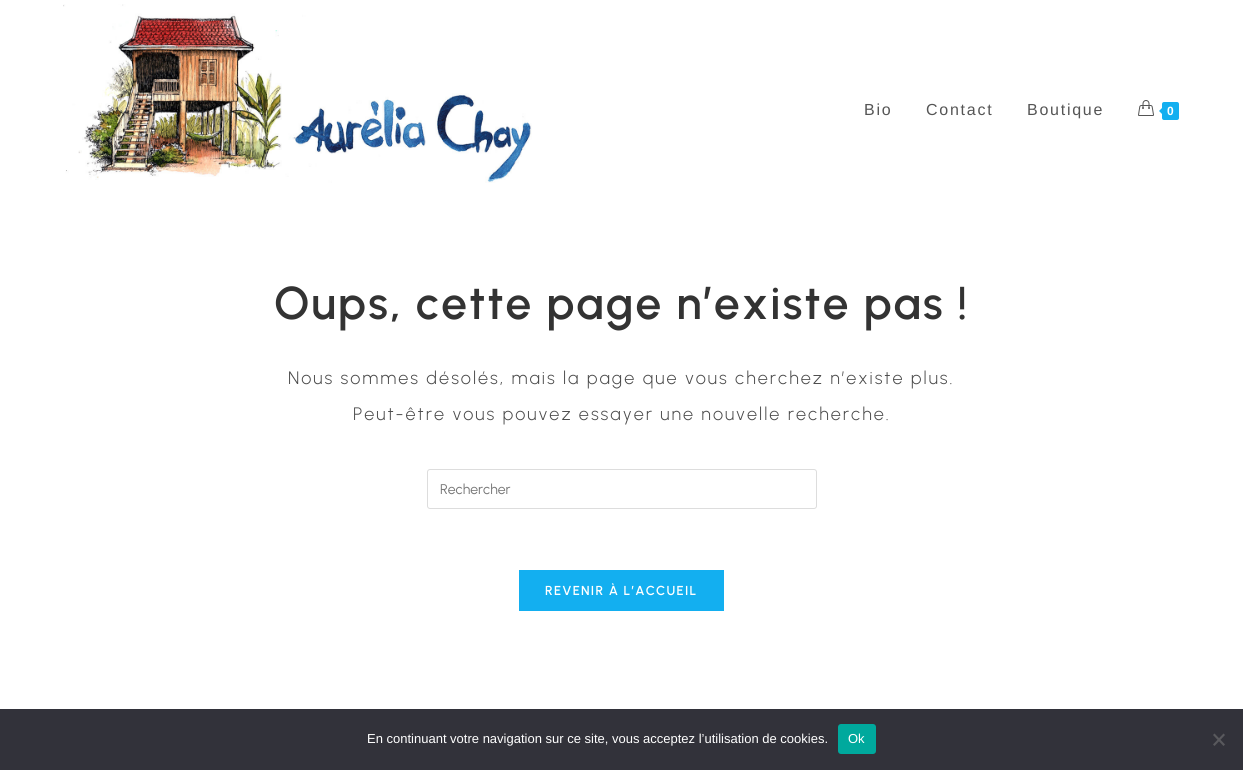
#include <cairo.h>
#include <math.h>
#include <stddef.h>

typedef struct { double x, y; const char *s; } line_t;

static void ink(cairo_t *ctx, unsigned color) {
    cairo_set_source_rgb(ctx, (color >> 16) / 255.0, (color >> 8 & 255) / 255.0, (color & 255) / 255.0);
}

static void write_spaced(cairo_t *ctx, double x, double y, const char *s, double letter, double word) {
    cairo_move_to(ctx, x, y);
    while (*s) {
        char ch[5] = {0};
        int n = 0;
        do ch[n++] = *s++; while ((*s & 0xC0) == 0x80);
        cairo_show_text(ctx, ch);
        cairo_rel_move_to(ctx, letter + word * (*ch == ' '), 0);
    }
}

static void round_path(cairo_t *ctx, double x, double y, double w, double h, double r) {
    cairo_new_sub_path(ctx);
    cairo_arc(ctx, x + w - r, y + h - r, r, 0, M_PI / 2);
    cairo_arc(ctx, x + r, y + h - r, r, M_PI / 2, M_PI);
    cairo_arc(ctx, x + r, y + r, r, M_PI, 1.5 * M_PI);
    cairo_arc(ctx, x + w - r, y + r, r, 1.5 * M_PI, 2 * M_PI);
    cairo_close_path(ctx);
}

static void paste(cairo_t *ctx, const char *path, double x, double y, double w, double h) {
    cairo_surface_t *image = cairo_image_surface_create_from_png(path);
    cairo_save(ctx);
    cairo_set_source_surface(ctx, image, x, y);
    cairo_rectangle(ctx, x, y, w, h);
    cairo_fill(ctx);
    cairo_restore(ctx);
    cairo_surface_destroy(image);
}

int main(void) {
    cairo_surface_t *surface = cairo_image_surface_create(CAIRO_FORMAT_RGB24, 1243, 770);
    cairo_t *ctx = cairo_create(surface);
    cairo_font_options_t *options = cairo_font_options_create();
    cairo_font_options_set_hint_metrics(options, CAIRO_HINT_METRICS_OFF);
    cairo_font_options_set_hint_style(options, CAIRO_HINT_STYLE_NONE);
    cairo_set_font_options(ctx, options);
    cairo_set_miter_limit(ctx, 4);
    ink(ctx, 0xFFFFFF);
    cairo_paint(ctx);
    paste(ctx, "media/1.png", 63, 4, 469, 179);
    cairo_select_font_face(ctx, "Liberation Sans", CAIRO_FONT_SLANT_NORMAL, CAIRO_FONT_WEIGHT_NORMAL);
    cairo_set_font_size(ctx, 16);
    ink(ctx, 0x555555);
    {
        static const line_t items[] = {
            {864, 115, "Bio"},
            {926, 115, "Contact"},
            {1027, 115, "Boutique"},
        };
        for (size_t i = 0; i < sizeof items / sizeof *items; i++) {
            write_spaced(ctx, items[i].x, items[i].y, items[i].s, 1.75, 0);
        }
    }
    paste(ctx, "media/2.png", 1138, 100, 16, 16);
    ink(ctx, 0x13AFF0);
    round_path(ctx, 1162, 102, 17, 18, 2);
    cairo_fill(ctx);
    cairo_new_path(ctx);
    cairo_move_to(ctx, 1164, 106);
    cairo_line_to(ctx, 1164, 116);
    cairo_line_to(ctx, 1159, 111);
    cairo_close_path(ctx);
    cairo_fill(ctx);
    cairo_select_font_face(ctx, "Liberation Sans", CAIRO_FONT_SLANT_NORMAL, CAIRO_FONT_WEIGHT_BOLD);
    cairo_set_font_size(ctx, 12);
    ink(ctx, 0xFFFFFF);
    cairo_move_to(ctx, 1167, 115);
    cairo_show_text(ctx, "0");
    cairo_select_font_face(ctx, "Urbanist SemiBold", CAIRO_FONT_SLANT_NORMAL, CAIRO_FONT_WEIGHT_NORMAL);
    cairo_set_font_size(ctx, 46);
    ink(ctx, 0x333333);
    write_spaced(ctx, 274, 319, "Oups, cette page n’existe pas !", 2, 0);
    cairo_select_font_face(ctx, "Urbanist Light", CAIRO_FONT_SLANT_NORMAL, CAIRO_FONT_WEIGHT_NORMAL);
    cairo_set_font_size(ctx, 18);
    ink(ctx, 0x4A4A4A);
    write_spaced(ctx, 288, 384, "Nous sommes désolés, mais la page que vous cherchez n’existe plus.", 2, 0);
    write_spaced(ctx, 353, 420, "Peut-être vous pouvez essayer une nouvelle recherche.", 2, 0);
    round_path(ctx, 427.5, 469.5, 389, 39, 2.5);
    ink(ctx, 0xDDDDDD);
    cairo_set_line_width(ctx, 1);
    cairo_stroke(ctx);
    cairo_select_font_face(ctx, "Urbanist", CAIRO_FONT_SLANT_NORMAL, CAIRO_FONT_WEIGHT_NORMAL);
    cairo_set_font_size(ctx, 14);
    ink(ctx, 0x757575);
    cairo_move_to(ctx, 440, 494);
    cairo_show_text(ctx, "Rechercher");
    ink(ctx, 0x13AFF0);
    cairo_rectangle(ctx, 519, 570, 205, 41);
    cairo_fill(ctx);
    cairo_select_font_face(ctx, "Urbanist SemiBold", CAIRO_FONT_SLANT_NORMAL, CAIRO_FONT_WEIGHT_NORMAL);
    cairo_set_font_size(ctx, 13);
    ink(ctx, 0xFFFFFF);
    write_spaced(ctx, 545, 595, "REVENIR À L’ACCUEIL", 1.25, 0);
    ink(ctx, 0x32323A);
    cairo_rectangle(ctx, 0, 709, 1243, 61);
    cairo_fill(ctx);
    cairo_select_font_face(ctx, "Liberation Sans", CAIRO_FONT_SLANT_NORMAL, CAIRO_FONT_WEIGHT_NORMAL);
    ink(ctx, 0xFFFFFF);
    cairo_move_to(ctx, 367, 743);
    cairo_show_text(ctx, "En continuant votre navigation sur ce site, vous acceptez l’utilisation de cookies.");
    ink(ctx, 0x00A99D);
    round_path(ctx, 838, 724, 38, 30, 3);
    cairo_fill(ctx);
    ink(ctx, 0xFFFFFF);
    cairo_move_to(ctx, 848, 743);
    cairo_show_text(ctx, "Ok");
    ink(ctx, 0x59595D);
    cairo_new_path(ctx);
    cairo_move_to(ctx, 1223.5, 733.5);
    cairo_line_to(ctx, 1225, 735);
    cairo_line_to(ctx, 1214.5, 746);
    cairo_line_to(ctx, 1213, 744.5);
    cairo_close_path(ctx);
    cairo_fill(ctx);
    cairo_new_path(ctx);
    cairo_move_to(ctx, 1213, 735);
    cairo_line_to(ctx, 1214.5, 733.5);
    cairo_line_to(ctx, 1225, 744.5);
    cairo_line_to(ctx, 1223.5, 746);
    cairo_close_path(ctx);
    cairo_fill(ctx);
    cairo_surface_write_to_png(surface, "image.png");
    cairo_font_options_destroy(options);
    cairo_destroy(ctx);
    cairo_surface_destroy(surface);
    return 0;
}
